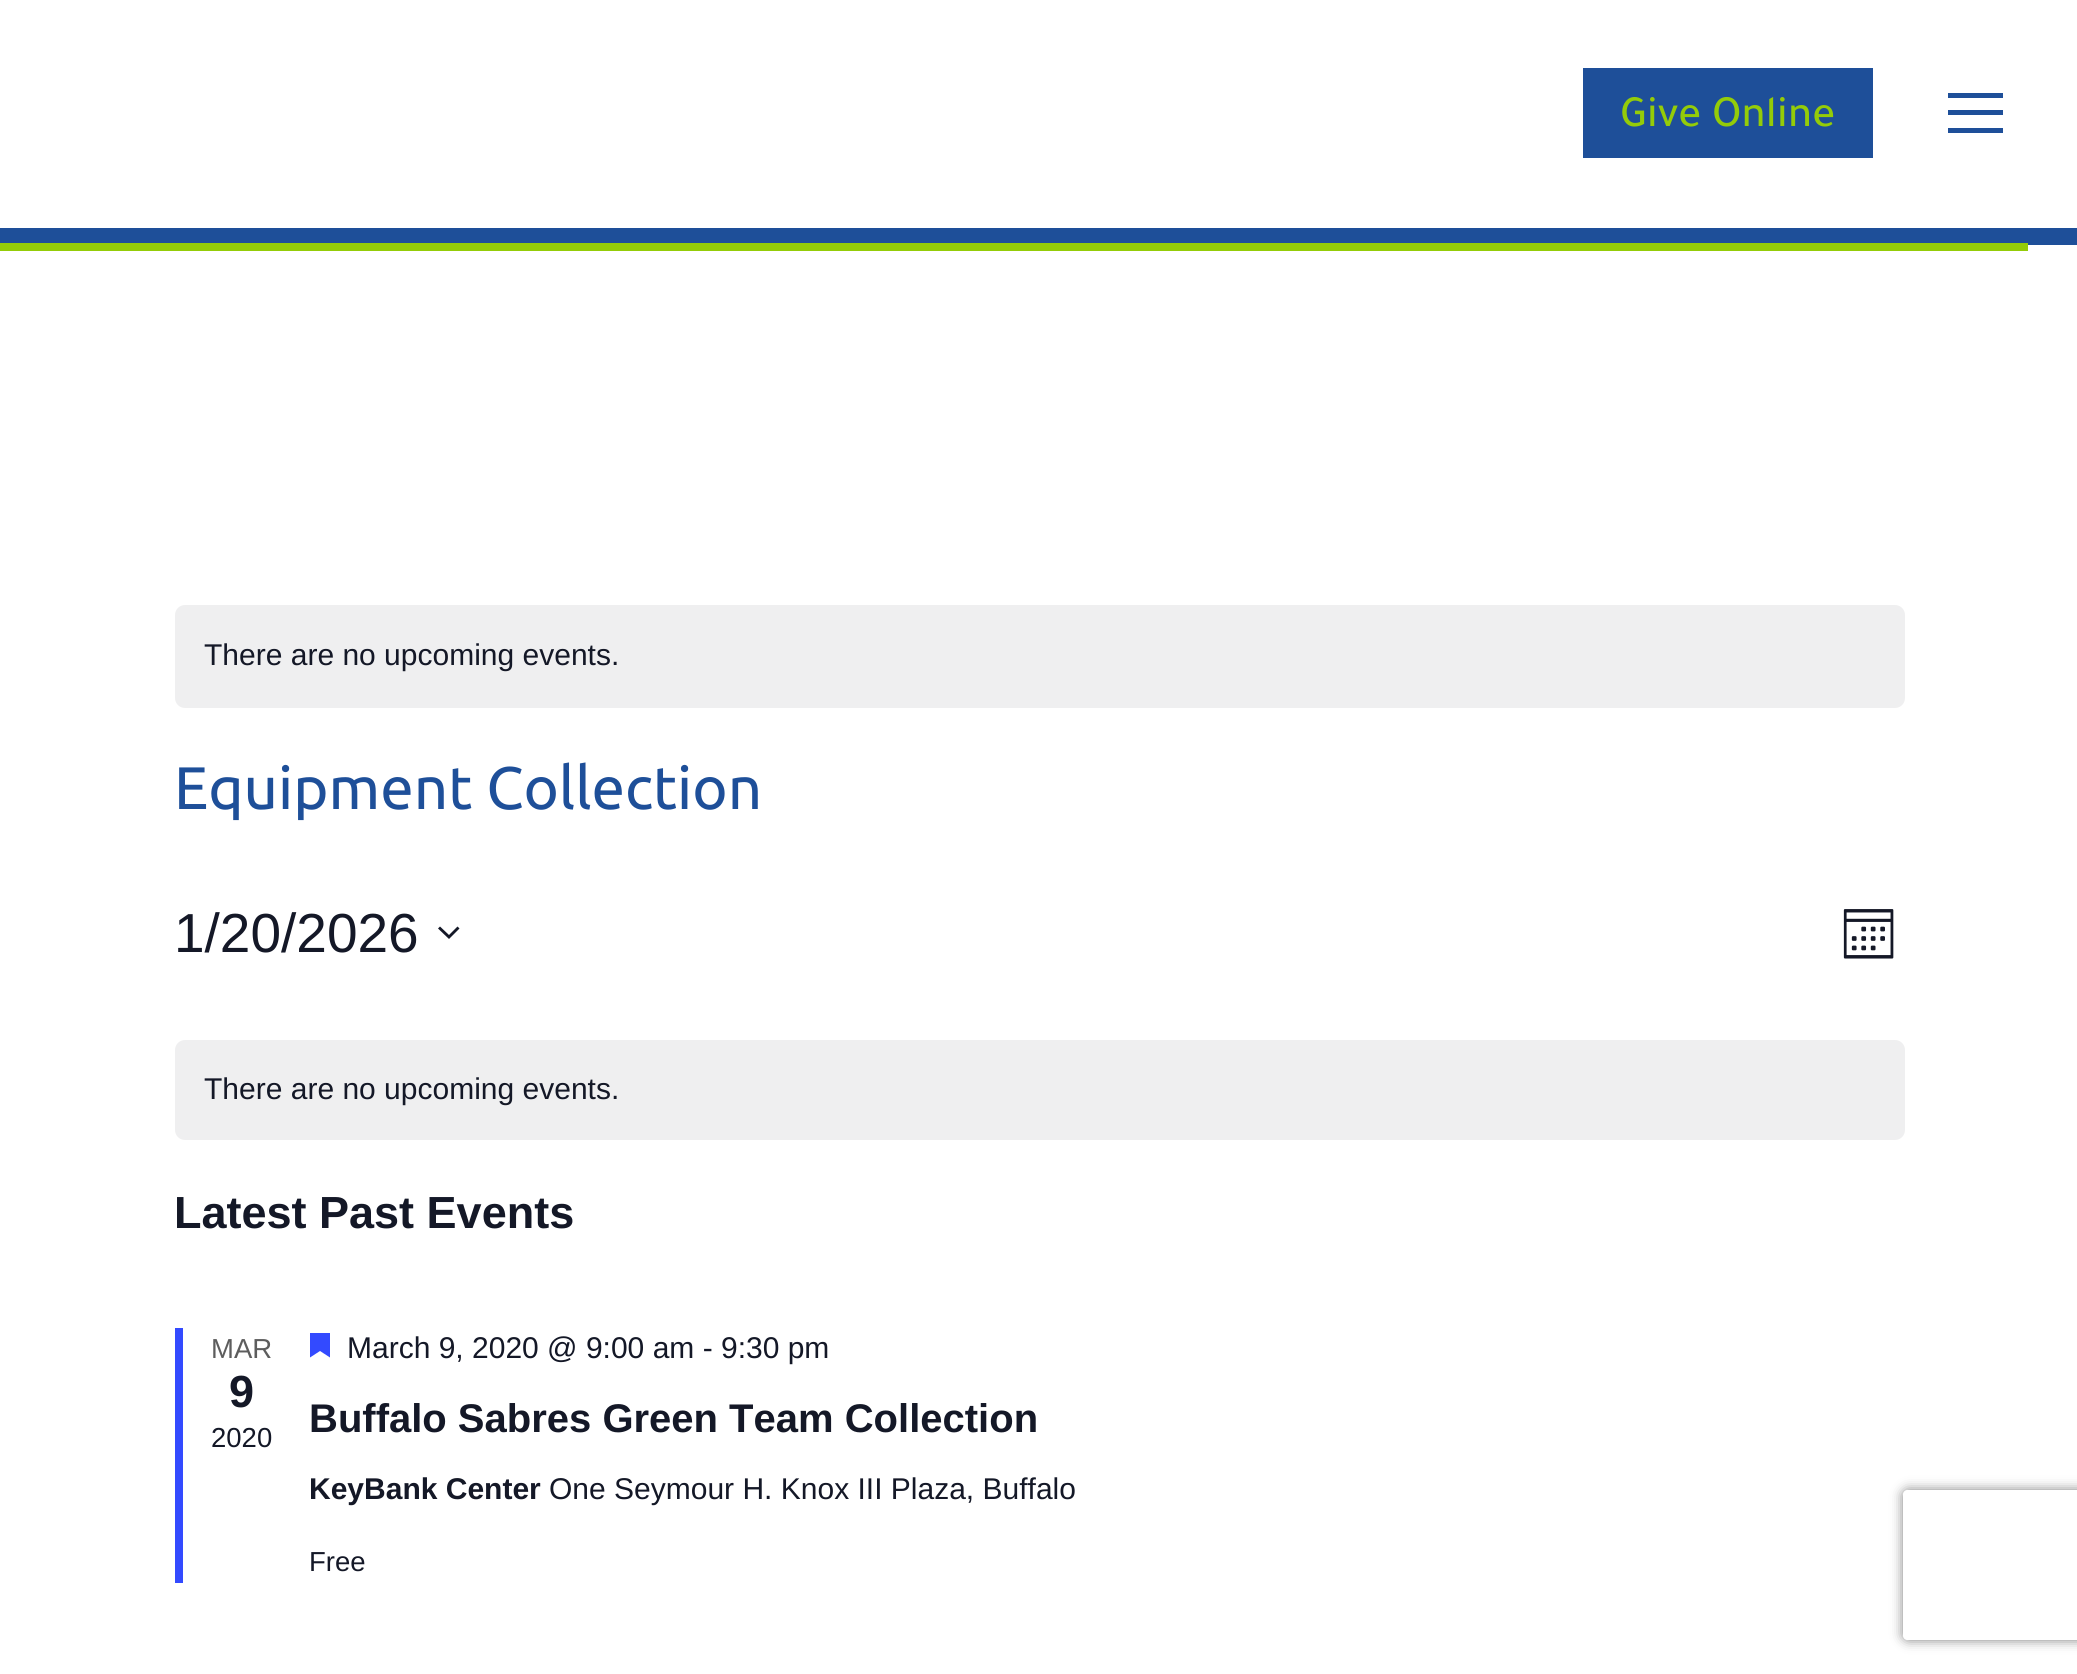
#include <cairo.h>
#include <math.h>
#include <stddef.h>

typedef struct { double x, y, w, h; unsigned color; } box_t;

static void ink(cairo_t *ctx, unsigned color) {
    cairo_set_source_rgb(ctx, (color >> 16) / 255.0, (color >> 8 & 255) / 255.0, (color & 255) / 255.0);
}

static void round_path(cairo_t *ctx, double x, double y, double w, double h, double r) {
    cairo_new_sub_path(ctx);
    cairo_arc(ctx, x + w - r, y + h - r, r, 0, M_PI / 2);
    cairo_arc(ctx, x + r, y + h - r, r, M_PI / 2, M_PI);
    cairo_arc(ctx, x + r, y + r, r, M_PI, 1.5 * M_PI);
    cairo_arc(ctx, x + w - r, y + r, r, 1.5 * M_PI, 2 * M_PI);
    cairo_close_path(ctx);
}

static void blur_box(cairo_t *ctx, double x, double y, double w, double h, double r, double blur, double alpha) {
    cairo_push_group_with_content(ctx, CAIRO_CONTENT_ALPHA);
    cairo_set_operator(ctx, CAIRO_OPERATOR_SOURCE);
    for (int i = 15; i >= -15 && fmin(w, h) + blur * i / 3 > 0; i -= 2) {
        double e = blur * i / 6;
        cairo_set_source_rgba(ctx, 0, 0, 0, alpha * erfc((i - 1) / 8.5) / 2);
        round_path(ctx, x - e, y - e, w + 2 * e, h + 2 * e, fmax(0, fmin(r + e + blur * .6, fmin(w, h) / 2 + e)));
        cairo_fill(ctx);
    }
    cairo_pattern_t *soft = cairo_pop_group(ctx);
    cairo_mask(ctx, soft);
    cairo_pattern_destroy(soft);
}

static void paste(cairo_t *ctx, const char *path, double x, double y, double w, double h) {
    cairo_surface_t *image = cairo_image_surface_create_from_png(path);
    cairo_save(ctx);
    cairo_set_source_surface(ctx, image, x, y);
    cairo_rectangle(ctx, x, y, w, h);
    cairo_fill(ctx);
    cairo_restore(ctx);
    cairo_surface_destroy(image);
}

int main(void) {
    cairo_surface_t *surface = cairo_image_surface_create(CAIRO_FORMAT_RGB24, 2077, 1674);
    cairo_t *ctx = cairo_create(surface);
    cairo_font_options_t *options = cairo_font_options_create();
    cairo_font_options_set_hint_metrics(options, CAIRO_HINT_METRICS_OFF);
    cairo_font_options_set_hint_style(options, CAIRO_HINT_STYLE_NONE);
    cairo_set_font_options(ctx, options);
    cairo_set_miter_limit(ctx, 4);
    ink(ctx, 0xFFFFFF);
    cairo_paint(ctx);
    ink(ctx, 0x1E4F99);
    cairo_rectangle(ctx, 0, 228, 2077, 17);
    cairo_fill(ctx);
    cairo_rectangle(ctx, 1583, 68, 290, 90);
    cairo_fill(ctx);
    cairo_select_font_face(ctx, "Tajawal Medium", CAIRO_FONT_SLANT_NORMAL, CAIRO_FONT_WEIGHT_NORMAL);
    cairo_set_font_size(ctx, 45);
    ink(ctx, 0x94CC08);
    cairo_move_to(ctx, 1620, 126);
    cairo_show_text(ctx, "Give Online");
    {
        static const box_t items[] = {
            {1948, 93, 55, 5, 0x1E4F99},
            {1948, 110, 55, 5, 0x1E4F99},
            {1948, 128, 55, 5, 0x1E4F99},
            {0, 243, 2028, 8, 0x94CC08},
        };
        for (size_t i = 0; i < sizeof items / sizeof *items; i++) {
            ink(ctx, items[i].color);
            cairo_rectangle(ctx, items[i].x, items[i].y, items[i].w, items[i].h);
            cairo_fill(ctx);
        }
    }
    ink(ctx, 0xEFEFF0);
    round_path(ctx, 175, 605, 1730, 103, 10);
    cairo_fill(ctx);
    cairo_select_font_face(ctx, "Liberation Sans", CAIRO_FONT_SLANT_NORMAL, CAIRO_FONT_WEIGHT_NORMAL);
    cairo_set_font_size(ctx, 30);
    ink(ctx, 0x141827);
    cairo_move_to(ctx, 204, 665);
    cairo_show_text(ctx, "There are no upcoming events.");
    cairo_select_font_face(ctx, "Ubuntu", CAIRO_FONT_SLANT_NORMAL, CAIRO_FONT_WEIGHT_NORMAL);
    cairo_set_font_size(ctx, 60);
    ink(ctx, 0x1E4F99);
    cairo_move_to(ctx, 174, 809);
    cairo_show_text(ctx, "Equipment Collection");
    cairo_select_font_face(ctx, "Liberation Sans", CAIRO_FONT_SLANT_NORMAL, CAIRO_FONT_WEIGHT_NORMAL);
    cairo_set_font_size(ctx, 55);
    ink(ctx, 0x141827);
    cairo_move_to(ctx, 174, 952);
    cairo_show_text(ctx, "1/20/2026");
    cairo_set_fill_rule(ctx, CAIRO_FILL_RULE_EVEN_ODD);
    cairo_new_path(ctx);
    cairo_move_to(ctx, 440, 926.5);
    cairo_line_to(ctx, 449, 935);
    cairo_line_to(ctx, 457.5, 926.5);
    cairo_line_to(ctx, 459.5, 928.5);
    cairo_line_to(ctx, 449, 939);
    cairo_line_to(ctx, 438, 928.5);
    cairo_close_path(ctx);
    cairo_fill(ctx);
    paste(ctx, "media/1.png", 1843, 909, 51, 50);
    ink(ctx, 0xEFEFF0);
    round_path(ctx, 175, 1040, 1730, 100, 10);
    cairo_fill(ctx);
    cairo_set_font_size(ctx, 30);
    ink(ctx, 0x141827);
    cairo_move_to(ctx, 204, 1099);
    cairo_show_text(ctx, "There are no upcoming events.");
    cairo_select_font_face(ctx, "Liberation Sans", CAIRO_FONT_SLANT_NORMAL, CAIRO_FONT_WEIGHT_BOLD);
    cairo_set_font_size(ctx, 45);
    cairo_move_to(ctx, 174, 1228);
    cairo_show_text(ctx, "Latest Past Events");
    ink(ctx, 0x334AFF);
    cairo_rectangle(ctx, 175, 1328, 8, 255);
    cairo_fill(ctx);
    cairo_select_font_face(ctx, "Liberation Sans", CAIRO_FONT_SLANT_NORMAL, CAIRO_FONT_WEIGHT_NORMAL);
    cairo_set_font_size(ctx, 27.5);
    ink(ctx, 0x5D5D5D);
    cairo_move_to(ctx, 211, 1358);
    cairo_show_text(ctx, "MAR");
    cairo_select_font_face(ctx, "Liberation Sans", CAIRO_FONT_SLANT_NORMAL, CAIRO_FONT_WEIGHT_BOLD);
    cairo_set_font_size(ctx, 45);
    ink(ctx, 0x141827);
    cairo_move_to(ctx, 229, 1407);
    cairo_show_text(ctx, "9");
    cairo_select_font_face(ctx, "Liberation Sans", CAIRO_FONT_SLANT_NORMAL, CAIRO_FONT_WEIGHT_NORMAL);
    cairo_set_font_size(ctx, 27.5);
    cairo_move_to(ctx, 211, 1447);
    cairo_show_text(ctx, "2020");
    cairo_save(ctx);
    cairo_set_fill_rule(ctx, CAIRO_FILL_RULE_WINDING);
    cairo_rectangle(ctx, 310, 1333, 20, 25);
    cairo_clip(ctx);
    ink(ctx, 0x334AFF);
    cairo_set_fill_rule(ctx, CAIRO_FILL_RULE_EVEN_ODD);
    cairo_new_path(ctx);
    cairo_move_to(ctx, 310, 1332.5);
    cairo_line_to(ctx, 330, 1332.5);
    cairo_line_to(ctx, 330, 1357.5);
    cairo_line_to(ctx, 320, 1351);
    cairo_line_to(ctx, 310, 1357.5);
    cairo_close_path(ctx);
    cairo_fill(ctx);
    cairo_restore(ctx);
    cairo_set_font_size(ctx, 30);
    cairo_move_to(ctx, 347, 1358);
    cairo_show_text(ctx, "March 9, 2020 @ 9:00 am - 9:30 pm");
    cairo_select_font_face(ctx, "Liberation Sans", CAIRO_FONT_SLANT_NORMAL, CAIRO_FONT_WEIGHT_BOLD);
    cairo_set_font_size(ctx, 40);
    cairo_move_to(ctx, 309, 1432);
    cairo_show_text(ctx, "Buffalo Sabres Green Team Collection");
    cairo_set_font_size(ctx, 30);
    cairo_move_to(ctx, 309, 1499);
    cairo_show_text(ctx, "KeyBank Center");
    cairo_select_font_face(ctx, "Liberation Sans", CAIRO_FONT_SLANT_NORMAL, CAIRO_FONT_WEIGHT_NORMAL);
    cairo_move_to(ctx, 549, 1499);
    cairo_show_text(ctx, "One Seymour H. Knox III Plaza, Buffalo");
    cairo_set_font_size(ctx, 27.5);
    cairo_move_to(ctx, 309, 1571);
    cairo_show_text(ctx, "Free");
    cairo_save(ctx);
    cairo_new_path(ctx);
    cairo_move_to(ctx, 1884, 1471);
    cairo_line_to(ctx, 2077, 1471);
    cairo_line_to(ctx, 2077, 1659);
    cairo_line_to(ctx, 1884, 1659);
    cairo_close_path(ctx);
    cairo_move_to(ctx, 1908, 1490);
    cairo_line_to(ctx, 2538, 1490);
    cairo_curve_to(ctx, 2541, 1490, 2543, 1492, 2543, 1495);
    cairo_line_to(ctx, 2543, 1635);
    cairo_curve_to(ctx, 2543, 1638, 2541, 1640, 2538, 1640);
    cairo_line_to(ctx, 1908, 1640);
    cairo_curve_to(ctx, 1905, 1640, 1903, 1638, 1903, 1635);
    cairo_line_to(ctx, 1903, 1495);
    cairo_curve_to(ctx, 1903, 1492, 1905, 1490, 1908, 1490);
    cairo_close_path(ctx);
    cairo_clip(ctx);
    ink(ctx, 0x808080);
    blur_box(ctx, 1903, 1490, 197, 150, 5, 6, 1);
    cairo_restore(ctx);
    cairo_surface_write_to_png(surface, "image.png");
    cairo_font_options_destroy(options);
    cairo_destroy(ctx);
    cairo_surface_destroy(surface);
    return 0;
}
